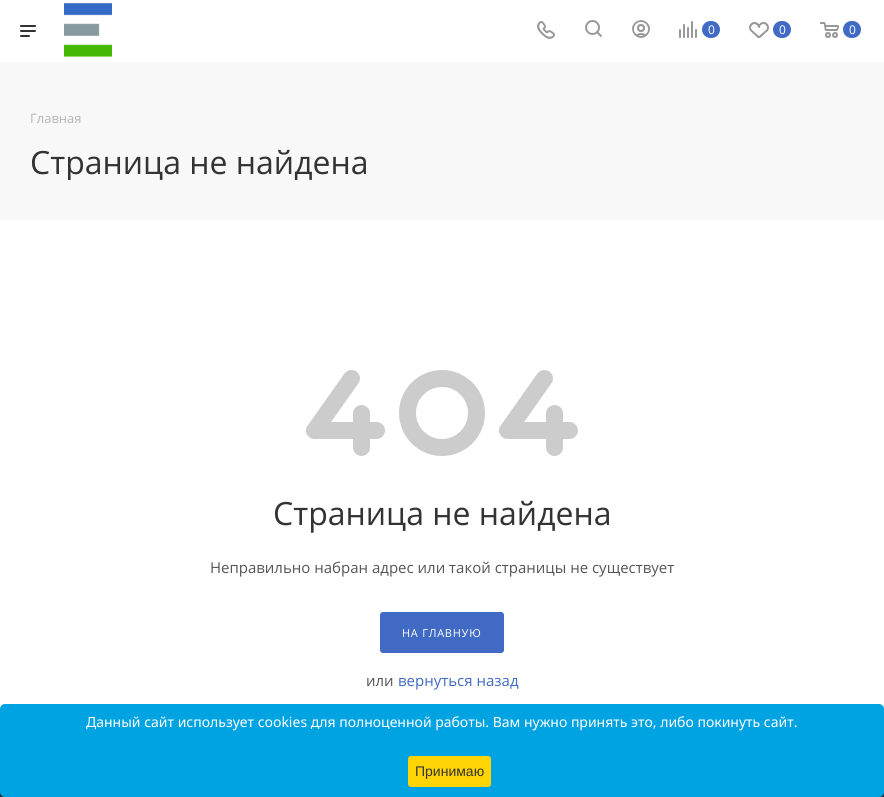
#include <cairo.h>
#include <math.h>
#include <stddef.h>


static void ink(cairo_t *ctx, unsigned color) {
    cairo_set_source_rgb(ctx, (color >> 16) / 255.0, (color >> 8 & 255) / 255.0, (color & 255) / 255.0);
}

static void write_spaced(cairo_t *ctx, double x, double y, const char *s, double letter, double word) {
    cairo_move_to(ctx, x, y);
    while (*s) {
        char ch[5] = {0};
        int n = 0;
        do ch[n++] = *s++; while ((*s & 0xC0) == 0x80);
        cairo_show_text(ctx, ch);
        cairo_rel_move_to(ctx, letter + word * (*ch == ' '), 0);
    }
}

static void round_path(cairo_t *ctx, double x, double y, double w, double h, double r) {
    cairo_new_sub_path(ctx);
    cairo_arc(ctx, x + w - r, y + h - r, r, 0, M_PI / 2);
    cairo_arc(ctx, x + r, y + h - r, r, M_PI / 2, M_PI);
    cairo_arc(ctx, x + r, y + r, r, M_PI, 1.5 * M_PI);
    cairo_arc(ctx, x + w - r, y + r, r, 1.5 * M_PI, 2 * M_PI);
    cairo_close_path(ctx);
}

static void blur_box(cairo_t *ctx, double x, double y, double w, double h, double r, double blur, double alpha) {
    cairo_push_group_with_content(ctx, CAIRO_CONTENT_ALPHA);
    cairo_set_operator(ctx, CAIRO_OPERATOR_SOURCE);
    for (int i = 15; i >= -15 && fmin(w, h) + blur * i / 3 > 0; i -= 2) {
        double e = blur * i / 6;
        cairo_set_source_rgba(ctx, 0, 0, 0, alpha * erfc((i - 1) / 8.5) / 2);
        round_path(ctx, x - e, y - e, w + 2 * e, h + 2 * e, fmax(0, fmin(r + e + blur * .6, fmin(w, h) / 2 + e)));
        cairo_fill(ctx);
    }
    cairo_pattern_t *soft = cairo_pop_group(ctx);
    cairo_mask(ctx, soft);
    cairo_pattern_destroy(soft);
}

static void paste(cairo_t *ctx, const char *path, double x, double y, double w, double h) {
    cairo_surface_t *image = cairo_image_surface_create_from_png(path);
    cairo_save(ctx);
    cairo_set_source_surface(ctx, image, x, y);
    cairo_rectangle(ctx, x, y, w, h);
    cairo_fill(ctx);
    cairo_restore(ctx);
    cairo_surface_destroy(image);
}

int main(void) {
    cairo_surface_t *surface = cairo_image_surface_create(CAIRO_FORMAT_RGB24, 884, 797);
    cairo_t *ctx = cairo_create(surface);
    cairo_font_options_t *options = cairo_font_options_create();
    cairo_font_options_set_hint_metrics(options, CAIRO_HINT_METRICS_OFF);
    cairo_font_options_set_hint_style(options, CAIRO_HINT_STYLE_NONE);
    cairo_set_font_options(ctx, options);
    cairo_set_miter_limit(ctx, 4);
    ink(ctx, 0xFFFFFF);
    cairo_paint(ctx);
    ink(ctx, 0xF8F8F8);
    cairo_rectangle(ctx, 0, 62, 884, 158);
    cairo_fill(ctx);
    paste(ctx, "media/1.png", 20, 25, 16, 12);
    paste(ctx, "media/2.png", 64, 2, 48, 55);
    paste(ctx, "media/3.png", 537, 21, 18, 18);
    paste(ctx, "media/4.png", 585, 20, 17, 17);
    paste(ctx, "media/5.png", 632, 20, 18, 18);
    paste(ctx, "media/6.png", 679, 21, 18, 17);
    ink(ctx, 0x406AC4);
    round_path(ctx, 702, 21, 18, 17, 8.5);
    cairo_fill(ctx);
    cairo_select_font_face(ctx, "Open Sans", CAIRO_FONT_SLANT_NORMAL, CAIRO_FONT_WEIGHT_NORMAL);
    cairo_set_font_size(ctx, 12);
    ink(ctx, 0xFFFFFF);
    cairo_move_to(ctx, 708, 34);
    cairo_show_text(ctx, "0");
    paste(ctx, "media/7.png", 749, 22, 20, 16);
    ink(ctx, 0x406AC4);
    round_path(ctx, 773, 21, 18, 17, 8.5);
    cairo_fill(ctx);
    ink(ctx, 0xFFFFFF);
    cairo_move_to(ctx, 779, 34);
    cairo_show_text(ctx, "0");
    paste(ctx, "media/8.png", 820, 22, 19, 16);
    ink(ctx, 0x406AC4);
    round_path(ctx, 843, 21, 18, 17, 8.5);
    cairo_fill(ctx);
    ink(ctx, 0xFFFFFF);
    cairo_move_to(ctx, 849, 34);
    cairo_show_text(ctx, "0");
    cairo_set_font_size(ctx, 13);
    ink(ctx, 0xB6B5B5);
    cairo_move_to(ctx, 30, 123);
    cairo_show_text(ctx, "Главная");
    cairo_save(ctx);
    cairo_rectangle(ctx, 30, 144, 824, 36);
    cairo_clip(ctx);
    cairo_set_font_size(ctx, 32);
    ink(ctx, 0x333333);
    cairo_move_to(ctx, 30, 174);
    cairo_show_text(ctx, "Страница не найдена");
    cairo_restore(ctx);
    paste(ctx, "media/9.png", 306, 370, 272, 86);
    cairo_set_font_size(ctx, 32);
    ink(ctx, 0x333333);
    cairo_move_to(ctx, 273, 525);
    cairo_show_text(ctx, "Страница не найдена");
    cairo_set_font_size(ctx, 15);
    ink(ctx, 0x555555);
    cairo_move_to(ctx, 210, 573);
    cairo_show_text(ctx, "Неправильно набран адрес или такой страницы не существует");
    ink(ctx, 0x406AC4);
    round_path(ctx, 380.5, 612.5, 123, 40, 2.5);
    cairo_fill_preserve(ctx);
    cairo_set_line_width(ctx, 1);
    cairo_stroke(ctx);
    cairo_set_font_size(ctx, 11);
    ink(ctx, 0xFFFFFF);
    write_spaced(ctx, 402, 637, "НА ГЛАВНУЮ", 0.75, 0);
    cairo_set_font_size(ctx, 15);
    ink(ctx, 0x555555);
    cairo_move_to(ctx, 366, 686);
    cairo_show_text(ctx, "или");
    ink(ctx, 0x406AC4);
    cairo_move_to(ctx, 398, 686);
    cairo_show_text(ctx, "вернуться назад");
    ink(ctx, 0x333333);
    cairo_rectangle(ctx, 0, 792, 884, 5);
    cairo_fill(ctx);
    ink(ctx, 0x000000);
    blur_box(ctx, 0, 710, 884, 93, 5, 3, 0.25);
    ink(ctx, 0x00A3E1);
    round_path(ctx, 0, 704, 884, 93, 5);
    cairo_fill(ctx);
    cairo_select_font_face(ctx, "Noto Sans", CAIRO_FONT_SLANT_NORMAL, CAIRO_FONT_WEIGHT_NORMAL);
    cairo_set_font_size(ctx, 14);
    ink(ctx, 0xFFFFFF);
    cairo_move_to(ctx, 86, 727);
    cairo_show_text(ctx, "Данный сайт использует cookies для полноценной работы. Вам нужно принять это, либо покинуть сайт.");
    ink(ctx, 0xFFD507);
    round_path(ctx, 408, 756, 83, 31, 3);
    cairo_fill(ctx);
    cairo_select_font_face(ctx, "Liberation Sans", CAIRO_FONT_SLANT_NORMAL, CAIRO_FONT_WEIGHT_NORMAL);
    ink(ctx, 0x333333);
    cairo_move_to(ctx, 415, 776);
    cairo_show_text(ctx, "Принимаю");
    cairo_surface_write_to_png(surface, "image.png");
    cairo_font_options_destroy(options);
    cairo_destroy(ctx);
    cairo_surface_destroy(surface);
    return 0;
}
